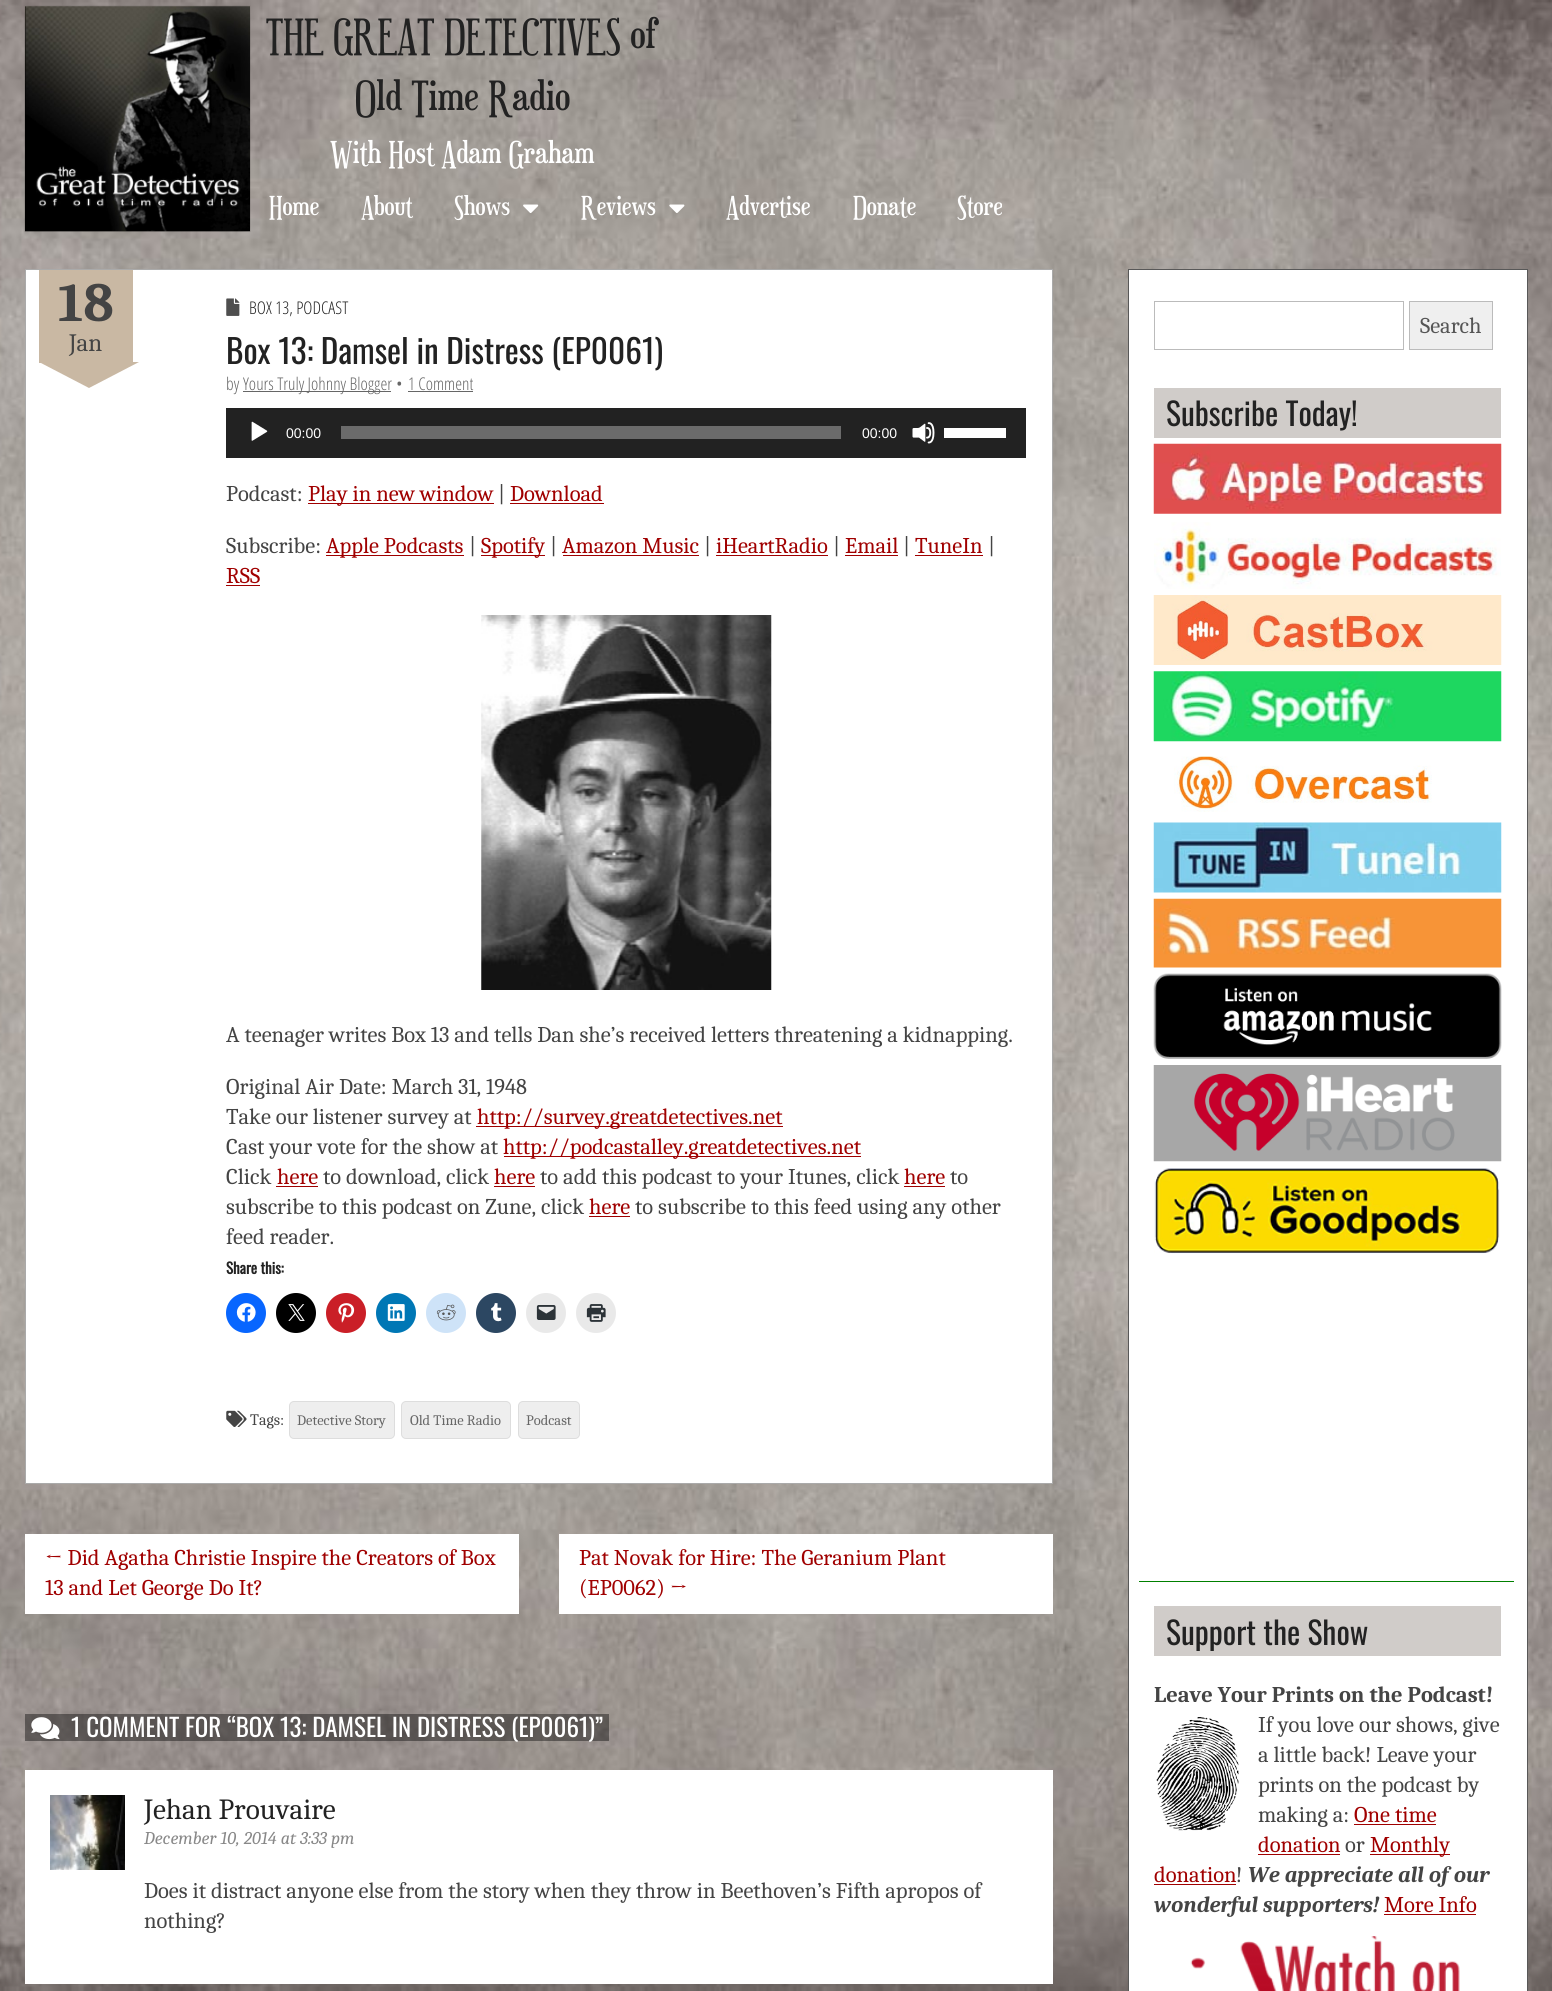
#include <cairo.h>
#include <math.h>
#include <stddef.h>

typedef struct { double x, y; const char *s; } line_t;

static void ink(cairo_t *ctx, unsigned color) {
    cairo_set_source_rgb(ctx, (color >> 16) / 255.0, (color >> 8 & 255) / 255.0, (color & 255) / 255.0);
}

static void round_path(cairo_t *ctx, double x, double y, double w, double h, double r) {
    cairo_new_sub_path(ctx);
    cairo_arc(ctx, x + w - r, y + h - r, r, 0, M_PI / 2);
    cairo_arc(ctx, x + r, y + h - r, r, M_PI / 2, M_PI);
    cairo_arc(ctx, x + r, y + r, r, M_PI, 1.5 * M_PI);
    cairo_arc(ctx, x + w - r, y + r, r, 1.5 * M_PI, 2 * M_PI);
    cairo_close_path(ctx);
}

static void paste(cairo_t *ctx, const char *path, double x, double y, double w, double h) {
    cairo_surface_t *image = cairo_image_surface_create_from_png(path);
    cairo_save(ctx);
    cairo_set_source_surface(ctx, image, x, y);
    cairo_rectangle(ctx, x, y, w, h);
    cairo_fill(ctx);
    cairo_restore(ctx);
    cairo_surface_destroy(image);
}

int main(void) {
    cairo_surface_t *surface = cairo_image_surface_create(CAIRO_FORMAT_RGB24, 1552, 1991);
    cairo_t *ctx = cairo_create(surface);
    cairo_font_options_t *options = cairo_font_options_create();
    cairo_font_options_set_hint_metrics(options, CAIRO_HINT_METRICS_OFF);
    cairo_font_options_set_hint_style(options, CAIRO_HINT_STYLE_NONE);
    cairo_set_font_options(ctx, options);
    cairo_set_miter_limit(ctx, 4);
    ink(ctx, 0xFFFFFF);
    cairo_paint(ctx);
    paste(ctx, "media/1.png", 0, 0, 1552, 1991);
    paste(ctx, "media/2.png", 24, 5, 227, 227);
    cairo_select_font_face(ctx, "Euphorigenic", CAIRO_FONT_SLANT_NORMAL, CAIRO_FONT_WEIGHT_NORMAL);
    cairo_set_font_size(ctx, 40);
    ink(ctx, 0x222222);
    cairo_move_to(ctx, 266, 48);
    cairo_show_text(ctx, "THE GREAT DETECTIVES of");
    cairo_move_to(ctx, 355, 110);
    cairo_show_text(ctx, "Old Time Radio");
    cairo_set_font_size(ctx, 30);
    ink(ctx, 0xFFFFFF);
    cairo_move_to(ctx, 330, 163);
    cairo_show_text(ctx, "With Host Adam Graham");
    cairo_set_font_size(ctx, 26);
    {
        static const line_t items[] = {
            {269, 215, "Home"},
            {361, 215, "About"},
            {454, 215, "Shows"},
        };
        for (size_t i = 0; i < sizeof items / sizeof *items; i++) {
            cairo_move_to(ctx, items[i].x, items[i].y);
            cairo_show_text(ctx, items[i].s);
        }
    }
    paste(ctx, "media/3.png", 523, 204, 16, 9);
    cairo_move_to(ctx, 581, 215);
    cairo_show_text(ctx, "Reviews");
    paste(ctx, "media/4.png", 669, 204, 16, 9);
    {
        static const line_t items[] = {
            {726, 215, "Advertise"},
            {853, 215, "Donate"},
            {957, 215, "Store"},
        };
        for (size_t i = 0; i < sizeof items / sizeof *items; i++) {
            cairo_move_to(ctx, items[i].x, items[i].y);
            cairo_show_text(ctx, items[i].s);
        }
    }
    cairo_rectangle(ctx, 25.5, 269.5, 1027, 1214);
    cairo_fill_preserve(ctx);
    ink(ctx, 0xAAAAAA);
    cairo_set_line_width(ctx, 1);
    cairo_stroke(ctx);
    ink(ctx, 0xC9B8A3);
    cairo_rectangle(ctx, 39, 270, 94, 93);
    cairo_fill(ctx);
    cairo_select_font_face(ctx, "Caladea", CAIRO_FONT_SLANT_NORMAL, CAIRO_FONT_WEIGHT_BOLD);
    cairo_set_font_size(ctx, 55);
    ink(ctx, 0x444444);
    cairo_move_to(ctx, 58, 321);
    cairo_show_text(ctx, "18");
    cairo_select_font_face(ctx, "Caladea", CAIRO_FONT_SLANT_NORMAL, CAIRO_FONT_WEIGHT_NORMAL);
    cairo_set_font_size(ctx, 25);
    cairo_move_to(ctx, 69, 351);
    cairo_show_text(ctx, "Jan");
    ink(ctx, 0xC9B8A3);
    cairo_new_path(ctx);
    cairo_move_to(ctx, 39, 362);
    cairo_line_to(ctx, 139, 362);
    cairo_line_to(ctx, 89, 388);
    cairo_close_path(ctx);
    cairo_fill(ctx);
    paste(ctx, "media/5.png", 226, 298, 14, 18);
    cairo_select_font_face(ctx, "Open Sans Condensed Light", CAIRO_FONT_SLANT_NORMAL, CAIRO_FONT_WEIGHT_NORMAL);
    cairo_set_font_size(ctx, 17.5);
    ink(ctx, 0x222222);
    cairo_move_to(ctx, 249, 314);
    cairo_show_text(ctx, "BOX 13, PODCAST");
    cairo_select_font_face(ctx, "Oswald", CAIRO_FONT_SLANT_NORMAL, CAIRO_FONT_WEIGHT_NORMAL);
    cairo_set_font_size(ctx, 33.3);
    cairo_move_to(ctx, 226, 364);
    cairo_show_text(ctx, "Box 13: Damsel in Distress (EP0061)");
    cairo_select_font_face(ctx, "Open Sans Condensed Light", CAIRO_FONT_SLANT_NORMAL, CAIRO_FONT_WEIGHT_NORMAL);
    cairo_set_font_size(ctx, 17.5);
    ink(ctx, 0x666666);
    cairo_move_to(ctx, 226, 390);
    cairo_show_text(ctx, "by");
    cairo_rectangle(ctx, 243, 391, 148, 1);
    cairo_fill(ctx);
    {
        static const line_t items[] = {
            {243, 390, "Yours Truly Johnny Blogger"},
            {396, 390, "•"},
            {408, 390, "1 Comment"},
        };
        for (size_t i = 0; i < sizeof items / sizeof *items; i++) {
            cairo_move_to(ctx, items[i].x, items[i].y);
            cairo_show_text(ctx, items[i].s);
        }
    }
    cairo_rectangle(ctx, 408, 391, 65, 1);
    cairo_fill(ctx);
    ink(ctx, 0x222222);
    cairo_rectangle(ctx, 226, 408, 800, 50);
    cairo_fill(ctx);
    paste(ctx, "media/6.png", 251, 421, 17, 20);
    cairo_select_font_face(ctx, "Liberation Sans", CAIRO_FONT_SLANT_NORMAL, CAIRO_FONT_WEIGHT_NORMAL);
    cairo_set_font_size(ctx, 14);
    ink(ctx, 0xFFFFFF);
    cairo_move_to(ctx, 286, 438);
    cairo_show_text(ctx, "00:00");
    ink(ctx, 0x6B6B6B);
    cairo_rectangle(ctx, 341, 426, 500, 13);
    cairo_fill(ctx);
    ink(ctx, 0xFFFFFF);
    cairo_move_to(ctx, 862, 438);
    cairo_show_text(ctx, "00:00");
    paste(ctx, "media/7.png", 912, 422, 23, 22);
    cairo_rectangle(ctx, 944, 428, 62, 10);
    cairo_fill(ctx);
    cairo_select_font_face(ctx, "Caladea", CAIRO_FONT_SLANT_NORMAL, CAIRO_FONT_WEIGHT_NORMAL);
    cairo_set_font_size(ctx, 22.5);
    ink(ctx, 0x444444);
    cairo_move_to(ctx, 226, 501);
    cairo_show_text(ctx, "Podcast:");
    ink(ctx, 0xA00000);
    cairo_rectangle(ctx, 308, 503, 186, 1);
    cairo_fill(ctx);
    cairo_move_to(ctx, 308, 501);
    cairo_show_text(ctx, "Play in new window");
    ink(ctx, 0x444444);
    cairo_move_to(ctx, 498, 501);
    cairo_show_text(ctx, "|");
    ink(ctx, 0xA00000);
    cairo_move_to(ctx, 510, 501);
    cairo_show_text(ctx, "Download");
    cairo_rectangle(ctx, 510, 503, 94, 1);
    cairo_fill(ctx);
    ink(ctx, 0x444444);
    cairo_move_to(ctx, 226, 553);
    cairo_show_text(ctx, "Subscribe:");
    ink(ctx, 0xA00000);
    cairo_rectangle(ctx, 326, 555, 138, 1);
    cairo_fill(ctx);
    cairo_move_to(ctx, 326, 553);
    cairo_show_text(ctx, "Apple Podcasts");
    ink(ctx, 0x444444);
    cairo_move_to(ctx, 469, 553);
    cairo_show_text(ctx, "|");
    ink(ctx, 0xA00000);
    cairo_rectangle(ctx, 481, 555, 64, 1);
    cairo_fill(ctx);
    cairo_move_to(ctx, 481, 553);
    cairo_show_text(ctx, "Spotify");
    ink(ctx, 0x444444);
    cairo_move_to(ctx, 550, 553);
    cairo_show_text(ctx, "|");
    ink(ctx, 0xA00000);
    cairo_move_to(ctx, 562, 553);
    cairo_show_text(ctx, "Amazon Music");
    cairo_rectangle(ctx, 563, 555, 136, 1);
    cairo_fill(ctx);
    ink(ctx, 0x444444);
    cairo_move_to(ctx, 704, 553);
    cairo_show_text(ctx, "|");
    ink(ctx, 0xA00000);
    cairo_move_to(ctx, 716, 553);
    cairo_show_text(ctx, "iHeartRadio");
    cairo_rectangle(ctx, 716, 555, 112, 1);
    cairo_fill(ctx);
    ink(ctx, 0x444444);
    cairo_move_to(ctx, 833, 553);
    cairo_show_text(ctx, "|");
    ink(ctx, 0xA00000);
    cairo_move_to(ctx, 845, 553);
    cairo_show_text(ctx, "Email");
    cairo_rectangle(ctx, 845, 555, 53, 1);
    cairo_fill(ctx);
    ink(ctx, 0x444444);
    cairo_move_to(ctx, 903, 553);
    cairo_show_text(ctx, "|");
    ink(ctx, 0xA00000);
    cairo_move_to(ctx, 915, 553);
    cairo_show_text(ctx, "TuneIn");
    cairo_rectangle(ctx, 915, 555, 68, 1);
    cairo_fill(ctx);
    ink(ctx, 0x444444);
    cairo_move_to(ctx, 988, 553);
    cairo_show_text(ctx, "|");
    ink(ctx, 0xA00000);
    cairo_move_to(ctx, 226, 583);
    cairo_show_text(ctx, "RSS");
    cairo_rectangle(ctx, 226, 585, 34, 1);
    cairo_fill(ctx);
    paste(ctx, "media/8.png", 481, 615, 291, 375);
    ink(ctx, 0x444444);
    {
        static const line_t items[] = {
            {226, 1042, "A teenager writes Box 13 and tells Dan she’s received letters threatening a kidnapping."},
            {226, 1094, "Original Air Date: March 31, 1948"},
            {226, 1124, "Take our listener survey at"},
        };
        for (size_t i = 0; i < sizeof items / sizeof *items; i++) {
            cairo_move_to(ctx, items[i].x, items[i].y);
            cairo_show_text(ctx, items[i].s);
        }
    }
    ink(ctx, 0xA00000);
    cairo_rectangle(ctx, 476, 1126, 307, 1);
    cairo_fill(ctx);
    cairo_move_to(ctx, 477, 1124);
    cairo_show_text(ctx, "http://survey.greatdetectives.net");
    ink(ctx, 0x444444);
    cairo_move_to(ctx, 226, 1154);
    cairo_show_text(ctx, "Cast your vote for the show at");
    ink(ctx, 0xA00000);
    cairo_rectangle(ctx, 504, 1156, 357, 1);
    cairo_fill(ctx);
    cairo_move_to(ctx, 503, 1154);
    cairo_show_text(ctx, "http://podcastalley.greatdetectives.net");
    ink(ctx, 0x444444);
    cairo_move_to(ctx, 226, 1184);
    cairo_show_text(ctx, "Click");
    ink(ctx, 0xA00000);
    cairo_move_to(ctx, 277, 1184);
    cairo_show_text(ctx, "here");
    cairo_rectangle(ctx, 276, 1186, 42, 1);
    cairo_fill(ctx);
    ink(ctx, 0x444444);
    cairo_move_to(ctx, 323, 1184);
    cairo_show_text(ctx, "to download, click");
    ink(ctx, 0xA00000);
    cairo_move_to(ctx, 494, 1184);
    cairo_show_text(ctx, "here");
    cairo_rectangle(ctx, 494, 1186, 41, 1);
    cairo_fill(ctx);
    ink(ctx, 0x444444);
    cairo_move_to(ctx, 540, 1184);
    cairo_show_text(ctx, "to add this podcast to your Itunes, click");
    ink(ctx, 0xA00000);
    cairo_move_to(ctx, 904, 1184);
    cairo_show_text(ctx, "here");
    cairo_rectangle(ctx, 904, 1186, 41, 1);
    cairo_fill(ctx);
    ink(ctx, 0x444444);
    cairo_move_to(ctx, 950, 1184);
    cairo_show_text(ctx, "to");
    cairo_move_to(ctx, 226, 1214);
    cairo_show_text(ctx, "subscribe to this podcast on Zune, click");
    ink(ctx, 0xA00000);
    cairo_move_to(ctx, 589, 1214);
    cairo_show_text(ctx, "here");
    cairo_rectangle(ctx, 589, 1216, 41, 1);
    cairo_fill(ctx);
    ink(ctx, 0x444444);
    cairo_move_to(ctx, 635, 1214);
    cairo_show_text(ctx, "to subscribe to this feed using any other");
    cairo_move_to(ctx, 226, 1244);
    cairo_show_text(ctx, "feed reader.");
    cairo_select_font_face(ctx, "Oswald", CAIRO_FONT_SLANT_NORMAL, CAIRO_FONT_WEIGHT_BOLD);
    cairo_set_font_size(ctx, 15);
    ink(ctx, 0x222222);
    cairo_move_to(ctx, 226, 1274);
    cairo_show_text(ctx, "Share this:");
    ink(ctx, 0x0866FF);
    cairo_new_path(ctx);
    cairo_arc(ctx, 246, 1313, 20, 0, 2 * M_PI);
    cairo_fill(ctx);
    paste(ctx, "media/9.png", 236, 1303, 20, 19);
    ink(ctx, 0x000000);
    cairo_arc(ctx, 296, 1313, 20, 0, 2 * M_PI);
    cairo_fill(ctx);
    paste(ctx, "media/10.png", 288, 1304, 17, 17);
    ink(ctx, 0xCA1F27);
    cairo_arc(ctx, 346, 1313, 20, 0, 2 * M_PI);
    cairo_fill(ctx);
    paste(ctx, "media/11.png", 338, 1303, 17, 20);
    ink(ctx, 0x0077B5);
    cairo_arc(ctx, 396, 1313, 20, 0, 2 * M_PI);
    cairo_fill(ctx);
    paste(ctx, "media/12.png", 387, 1304, 18, 17);
    ink(ctx, 0xCEE3F8);
    cairo_arc(ctx, 446, 1313, 20, 0, 2 * M_PI);
    cairo_fill(ctx);
    paste(ctx, "media/13.png", 436, 1304, 20, 17);
    ink(ctx, 0x2C4762);
    cairo_arc(ctx, 496, 1313, 20, 0, 2 * M_PI);
    cairo_fill(ctx);
    paste(ctx, "media/14.png", 491, 1303, 11, 19);
    ink(ctx, 0xE9E9E9);
    cairo_arc(ctx, 546, 1313, 20, 0, 2 * M_PI);
    cairo_fill(ctx);
    paste(ctx, "media/15.png", 536, 1305, 20, 15);
    cairo_arc(ctx, 596, 1313, 20, 0, 2 * M_PI);
    cairo_fill(ctx);
    paste(ctx, "media/16.png", 586, 1304, 20, 18);
    paste(ctx, "media/17.png", 226, 1410, 21, 17);
    cairo_select_font_face(ctx, "Caladea", CAIRO_FONT_SLANT_NORMAL, CAIRO_FONT_WEIGHT_NORMAL);
    cairo_set_font_size(ctx, 16);
    ink(ctx, 0x444444);
    cairo_move_to(ctx, 250, 1425);
    cairo_show_text(ctx, "Tags:");
    ink(ctx, 0xEEEEEE);
    round_path(ctx, 289.5, 1401.5, 105, 37, 4.5);
    cairo_fill_preserve(ctx);
    ink(ctx, 0xDDDDDD);
    cairo_stroke(ctx);
    cairo_set_font_size(ctx, 14.5);
    ink(ctx, 0x666666);
    cairo_move_to(ctx, 297, 1425);
    cairo_show_text(ctx, "Detective Story");
    ink(ctx, 0xEEEEEE);
    round_path(ctx, 401.5, 1401.5, 109, 37, 4.5);
    cairo_fill_preserve(ctx);
    ink(ctx, 0xDDDDDD);
    cairo_stroke(ctx);
    ink(ctx, 0x666666);
    cairo_move_to(ctx, 410, 1425);
    cairo_show_text(ctx, "Old Time Radio");
    ink(ctx, 0xEEEEEE);
    round_path(ctx, 518.5, 1401.5, 61, 37, 4.5);
    cairo_fill_preserve(ctx);
    ink(ctx, 0xDDDDDD);
    cairo_stroke(ctx);
    ink(ctx, 0x666666);
    cairo_move_to(ctx, 526, 1425);
    cairo_show_text(ctx, "Podcast");
    ink(ctx, 0xFFFFFF);
    cairo_rectangle(ctx, 25, 1534, 494, 80);
    cairo_fill(ctx);
    cairo_set_font_size(ctx, 22.5);
    ink(ctx, 0xA00000);
    cairo_move_to(ctx, 45, 1565);
    cairo_show_text(ctx, "← Did Agatha Christie Inspire the Creators of Box");
    cairo_move_to(ctx, 45, 1595);
    cairo_show_text(ctx, "13 and Let George Do It?");
    ink(ctx, 0xFFFFFF);
    cairo_rectangle(ctx, 559, 1534, 494, 80);
    cairo_fill(ctx);
    ink(ctx, 0xA00000);
    cairo_move_to(ctx, 579, 1565);
    cairo_show_text(ctx, "Pat Novak for Hire: The Geranium Plant");
    cairo_move_to(ctx, 579, 1595);
    cairo_show_text(ctx, "(EP0062) →");
    cairo_set_source_rgba(ctx, 0, 0, 0, 0.4);
    cairo_rectangle(ctx, 25, 1714, 584, 27);
    cairo_fill(ctx);
    paste(ctx, "media/18.png", 31, 1717, 29, 23);
    cairo_select_font_face(ctx, "Oswald", CAIRO_FONT_SLANT_NORMAL, CAIRO_FONT_WEIGHT_NORMAL);
    cairo_set_font_size(ctx, 25);
    ink(ctx, 0xFFFFFF);
    cairo_move_to(ctx, 71, 1737);
    cairo_show_text(ctx, "1 COMMENT FOR “BOX 13: DAMSEL IN DISTRESS (EP0061)”");
    cairo_rectangle(ctx, 25, 1770, 1028, 214);
    cairo_fill(ctx);
    paste(ctx, "media/19.png", 50, 1795, 75, 75);
    cairo_select_font_face(ctx, "Caladea", CAIRO_FONT_SLANT_NORMAL, CAIRO_FONT_WEIGHT_NORMAL);
    cairo_set_font_size(ctx, 29.25);
    ink(ctx, 0x222222);
    cairo_move_to(ctx, 144, 1819);
    cairo_show_text(ctx, "Jehan Prouvaire");
    cairo_select_font_face(ctx, "Caladea", CAIRO_FONT_SLANT_ITALIC, CAIRO_FONT_WEIGHT_NORMAL);
    cairo_set_font_size(ctx, 18);
    ink(ctx, 0x888888);
    cairo_move_to(ctx, 144, 1844);
    cairo_show_text(ctx, "December 10, 2014 at 3:33 pm");
    cairo_select_font_face(ctx, "Caladea", CAIRO_FONT_SLANT_NORMAL, CAIRO_FONT_WEIGHT_NORMAL);
    cairo_set_font_size(ctx, 22.5);
    ink(ctx, 0x444444);
    cairo_move_to(ctx, 144, 1898);
    cairo_show_text(ctx, "Does it distract anyone else from the story when they throw in Beethoven’s Fifth apropos of");
    cairo_move_to(ctx, 144, 1928);
    cairo_show_text(ctx, "nothing?");
    ink(ctx, 0xFFFFFF);
    cairo_rectangle(ctx, 1128.5, 269.5, 399, 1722);
    cairo_fill_preserve(ctx);
    ink(ctx, 0x585858);
    cairo_stroke(ctx);
    cairo_rectangle(ctx, 1154.5, 301.5, 249, 48);
    ink(ctx, 0xBBBBBB);
    cairo_stroke(ctx);
    ink(ctx, 0xEFEFEF);
    cairo_rectangle(ctx, 1409.5, 301.5, 83, 48);
    cairo_fill_preserve(ctx);
    ink(ctx, 0xBBBBBB);
    cairo_stroke(ctx);
    ink(ctx, 0x555555);
    cairo_move_to(ctx, 1420, 333);
    cairo_show_text(ctx, "Search");
    ink(ctx, 0xD0CCC9);
    cairo_rectangle(ctx, 1154, 388, 347, 50);
    cairo_fill(ctx);
    cairo_select_font_face(ctx, "Oswald", CAIRO_FONT_SLANT_NORMAL, CAIRO_FONT_WEIGHT_NORMAL);
    cairo_set_font_size(ctx, 31.5);
    ink(ctx, 0x222222);
    cairo_move_to(ctx, 1166, 426);
    cairo_show_text(ctx, "Subscribe Today!");
    paste(ctx, "media/20.png", 1153, 443, 349, 71);
    paste(ctx, "media/21.png", 1154, 522, 347, 67);
    paste(ctx, "media/22.png", 1153, 595, 349, 70);
    paste(ctx, "media/23.png", 1153, 671, 349, 71);
    paste(ctx, "media/24.png", 1174, 756, 258, 56);
    paste(ctx, "media/25.png", 1153, 822, 349, 71);
    paste(ctx, "media/26.png", 1153, 898, 349, 70);
    paste(ctx, "media/27.png", 1153, 973, 349, 86);
    paste(ctx, "media/28.png", 1153, 1065, 349, 97);
    paste(ctx, "media/29.png", 1154, 1168, 346, 86);
    ink(ctx, 0x008000);
    cairo_rectangle(ctx, 1139, 1581, 375, 1);
    cairo_fill(ctx);
    ink(ctx, 0xD0CCC9);
    cairo_rectangle(ctx, 1154, 1606, 347, 50);
    cairo_fill(ctx);
    ink(ctx, 0x222222);
    cairo_move_to(ctx, 1166, 1645);
    cairo_show_text(ctx, "Support the Show");
    cairo_select_font_face(ctx, "Caladea", CAIRO_FONT_SLANT_NORMAL, CAIRO_FONT_WEIGHT_BOLD);
    cairo_set_font_size(ctx, 22.5);
    ink(ctx, 0x444444);
    cairo_move_to(ctx, 1154, 1702);
    cairo_show_text(ctx, "Leave Your Prints on the Podcast!");
    paste(ctx, "media/30.png", 1156, 1717, 83, 114);
    cairo_select_font_face(ctx, "Caladea", CAIRO_FONT_SLANT_NORMAL, CAIRO_FONT_WEIGHT_NORMAL);
    {
        static const line_t items[] = {
            {1258, 1732, "If you love our shows, give"},
            {1258, 1762, "a little back! Leave your"},
            {1258, 1792, "prints on the podcast by"},
            {1258, 1822, "making a:"},
        };
        for (size_t i = 0; i < sizeof items / sizeof *items; i++) {
            cairo_move_to(ctx, items[i].x, items[i].y);
            cairo_show_text(ctx, items[i].s);
        }
    }
    ink(ctx, 0xA00000);
    cairo_move_to(ctx, 1354, 1822);
    cairo_show_text(ctx, "One time");
    cairo_rectangle(ctx, 1354, 1824, 82, 1);
    cairo_fill(ctx);
    cairo_move_to(ctx, 1258, 1852);
    cairo_show_text(ctx, "donation");
    cairo_rectangle(ctx, 1258, 1854, 82, 1);
    cairo_fill(ctx);
    ink(ctx, 0x444444);
    cairo_move_to(ctx, 1345, 1852);
    cairo_show_text(ctx, "or");
    ink(ctx, 0xA00000);
    cairo_rectangle(ctx, 1370, 1854, 80, 1);
    cairo_fill(ctx);
    cairo_move_to(ctx, 1370, 1852);
    cairo_show_text(ctx, "Monthly");
    cairo_move_to(ctx, 1154, 1882);
    cairo_show_text(ctx, "donation");
    cairo_rectangle(ctx, 1154, 1884, 82, 1);
    cairo_fill(ctx);
    ink(ctx, 0x444444);
    cairo_move_to(ctx, 1236, 1882);
    cairo_show_text(ctx, "!");
    cairo_select_font_face(ctx, "Caladea", CAIRO_FONT_SLANT_ITALIC, CAIRO_FONT_WEIGHT_BOLD);
    cairo_move_to(ctx, 1248, 1882);
    cairo_show_text(ctx, "We appreciate all of our");
    cairo_move_to(ctx, 1154, 1912);
    cairo_show_text(ctx, "wonderful supporters!");
    cairo_select_font_face(ctx, "Caladea", CAIRO_FONT_SLANT_NORMAL, CAIRO_FONT_WEIGHT_NORMAL);
    ink(ctx, 0xA00000);
    cairo_move_to(ctx, 1384, 1912);
    cairo_show_text(ctx, "More Info");
    cairo_rectangle(ctx, 1384, 1914, 92, 1);
    cairo_fill(ctx);
    paste(ctx, "media/31.png", 1190, 1936, 270, 55);
    cairo_surface_write_to_png(surface, "image.png");
    cairo_font_options_destroy(options);
    cairo_destroy(ctx);
    cairo_surface_destroy(surface);
    return 0;
}
